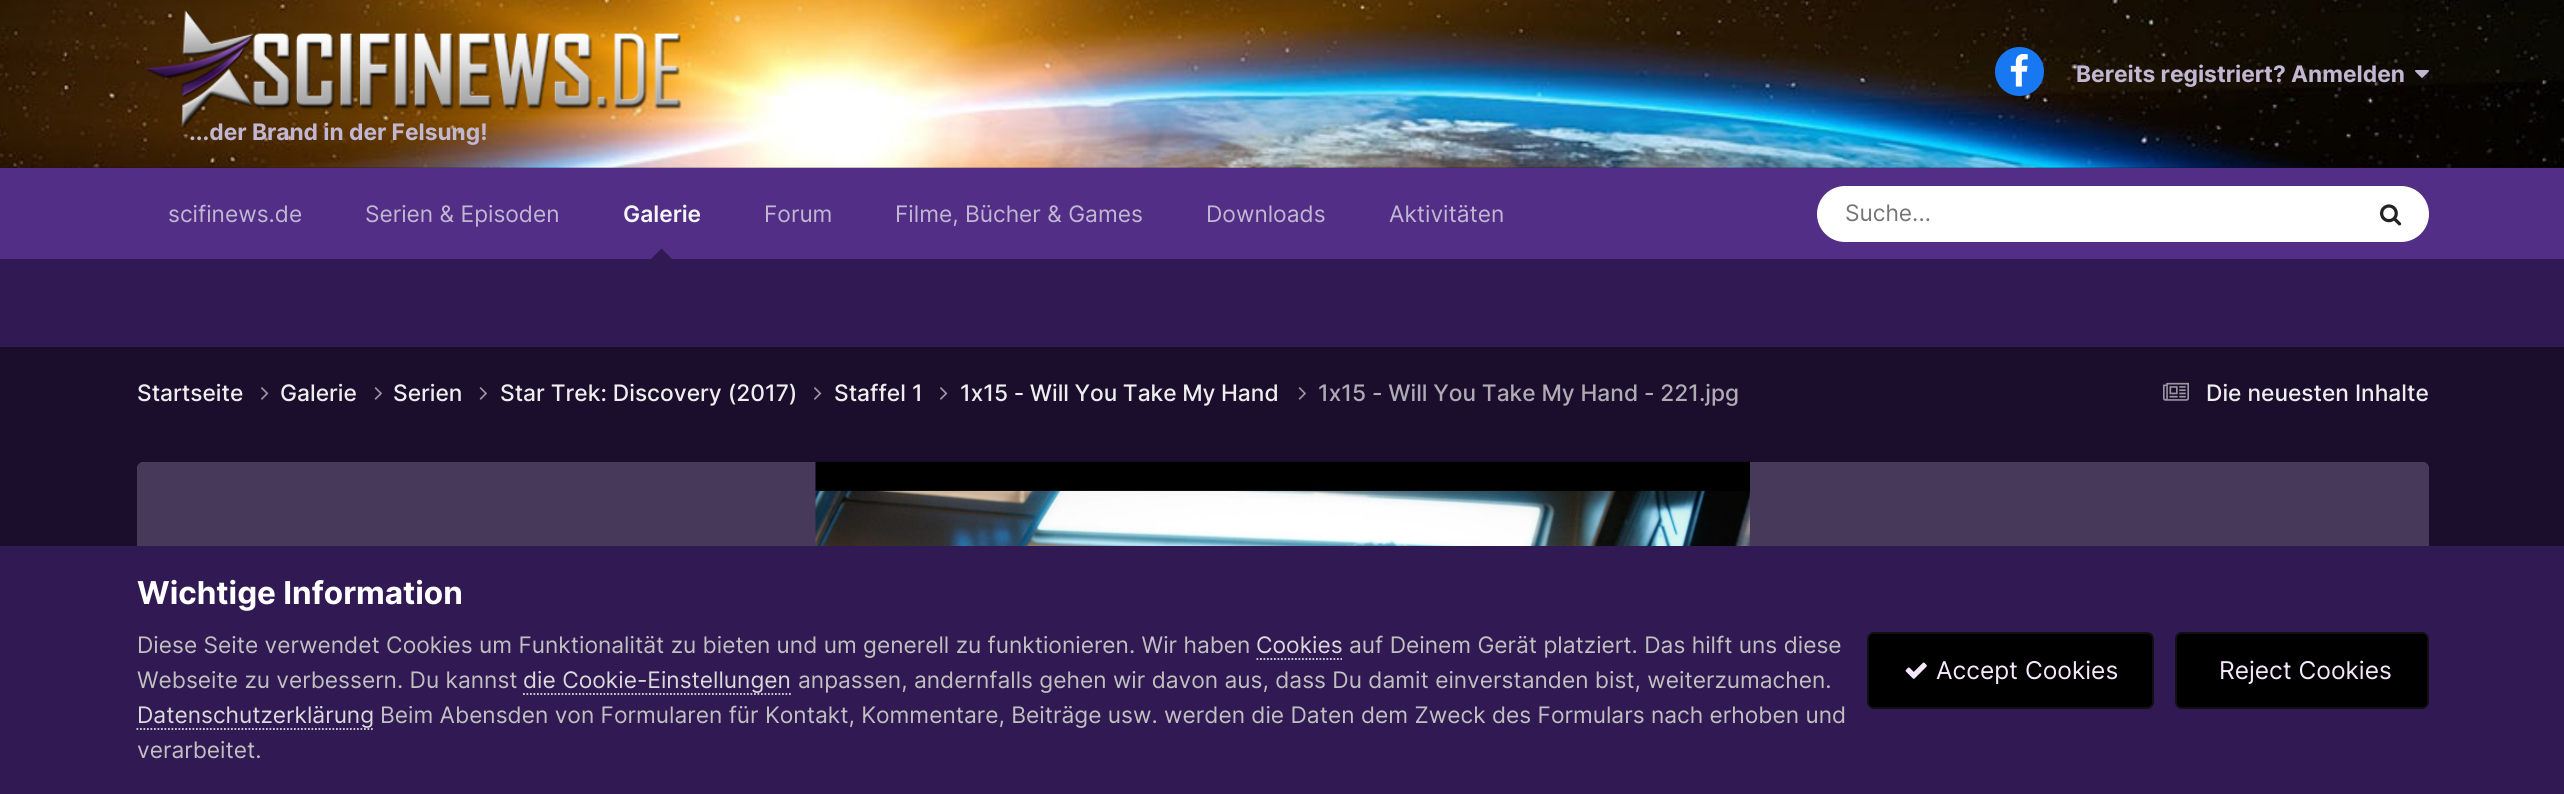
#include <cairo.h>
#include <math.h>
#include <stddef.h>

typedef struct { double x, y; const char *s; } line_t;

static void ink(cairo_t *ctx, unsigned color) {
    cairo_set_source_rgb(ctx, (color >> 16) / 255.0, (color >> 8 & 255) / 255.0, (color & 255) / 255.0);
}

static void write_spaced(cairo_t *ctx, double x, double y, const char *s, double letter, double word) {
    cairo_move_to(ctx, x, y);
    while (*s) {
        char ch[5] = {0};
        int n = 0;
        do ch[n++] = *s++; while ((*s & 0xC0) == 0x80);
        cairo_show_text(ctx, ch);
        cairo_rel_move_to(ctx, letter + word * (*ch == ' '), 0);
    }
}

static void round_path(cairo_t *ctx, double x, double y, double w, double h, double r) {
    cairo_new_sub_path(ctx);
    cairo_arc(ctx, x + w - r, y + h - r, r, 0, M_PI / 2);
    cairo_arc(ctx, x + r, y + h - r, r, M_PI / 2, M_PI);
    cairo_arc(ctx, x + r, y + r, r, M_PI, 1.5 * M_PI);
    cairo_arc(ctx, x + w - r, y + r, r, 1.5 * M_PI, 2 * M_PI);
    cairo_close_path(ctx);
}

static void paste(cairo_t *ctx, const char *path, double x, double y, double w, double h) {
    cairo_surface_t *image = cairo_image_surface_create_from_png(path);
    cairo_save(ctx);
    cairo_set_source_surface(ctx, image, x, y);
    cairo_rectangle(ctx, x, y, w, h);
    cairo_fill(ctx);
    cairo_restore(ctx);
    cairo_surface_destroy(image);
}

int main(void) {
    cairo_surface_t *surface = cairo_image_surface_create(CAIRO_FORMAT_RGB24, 2564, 794);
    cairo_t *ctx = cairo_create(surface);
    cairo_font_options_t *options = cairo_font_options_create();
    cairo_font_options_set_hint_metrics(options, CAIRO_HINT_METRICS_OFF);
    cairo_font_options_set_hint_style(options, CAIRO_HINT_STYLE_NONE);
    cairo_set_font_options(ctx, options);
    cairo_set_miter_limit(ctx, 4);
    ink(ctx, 0x1B0E2D);
    cairo_paint(ctx);
    paste(ctx, "media/1.png", 0, 0, 2564, 168);
    paste(ctx, "media/2.png", 144, 10, 538, 118);
    ink(ctx, 0x1778F2);
    cairo_arc(ctx, 2019.5, 71.5, 24.5, 0, 2 * M_PI);
    cairo_fill(ctx);
    paste(ctx, "media/3.png", 2010, 54, 18, 33);
    cairo_select_font_face(ctx, "Inter", CAIRO_FONT_SLANT_NORMAL, CAIRO_FONT_WEIGHT_BOLD);
    cairo_set_font_size(ctx, 22.75);
    ink(ctx, 0xC1B7D2);
    cairo_move_to(ctx, 2076, 82);
    cairo_show_text(ctx, "Bereits registriert? Anmelden");
    paste(ctx, "media/4.png", 2415, 70, 14, 8);
    cairo_move_to(ctx, 189, 140);
    cairo_show_text(ctx, "...der Brand in der Felsung!");
    ink(ctx, 0x522E87);
    cairo_rectangle(ctx, 0, 168, 2564, 91);
    cairo_fill(ctx);
    cairo_select_font_face(ctx, "Inter", CAIRO_FONT_SLANT_NORMAL, CAIRO_FONT_WEIGHT_NORMAL);
    ink(ctx, 0xC1B7D2);
    cairo_move_to(ctx, 168, 222);
    cairo_show_text(ctx, "scifinews.de");
    cairo_move_to(ctx, 365, 222);
    cairo_show_text(ctx, "Serien & Episoden");
    cairo_select_font_face(ctx, "Inter SemiBold", CAIRO_FONT_SLANT_NORMAL, CAIRO_FONT_WEIGHT_NORMAL);
    ink(ctx, 0xF3F6F4);
    cairo_move_to(ctx, 623, 222);
    cairo_show_text(ctx, "Galerie");
    ink(ctx, 0x311953);
    cairo_new_path(ctx);
    cairo_move_to(ctx, 672, 259);
    cairo_line_to(ctx, 651, 259);
    cairo_line_to(ctx, 661.5, 248.5);
    cairo_close_path(ctx);
    cairo_fill(ctx);
    cairo_select_font_face(ctx, "Inter", CAIRO_FONT_SLANT_NORMAL, CAIRO_FONT_WEIGHT_NORMAL);
    ink(ctx, 0xC1B7D2);
    {
        static const line_t items[] = {
            {764, 222, "Forum"},
            {895, 222, "Filme, Bücher & Games"},
            {1206, 222, "Downloads"},
            {1389, 222, "Aktivitäten"},
        };
        for (size_t i = 0; i < sizeof items / sizeof *items; i++) {
            cairo_move_to(ctx, items[i].x, items[i].y);
            cairo_show_text(ctx, items[i].s);
        }
    }
    ink(ctx, 0xFFFFFF);
    round_path(ctx, 1817, 186, 612, 56, 28);
    cairo_fill(ctx);
    ink(ctx, 0x757575);
    cairo_move_to(ctx, 1845, 221);
    cairo_show_text(ctx, "Suche...");
    paste(ctx, "media/5.png", 2380, 204, 22, 22);
    ink(ctx, 0x311953);
    cairo_rectangle(ctx, 0, 259, 2564, 88);
    cairo_fill(ctx);
    cairo_select_font_face(ctx, "Inter Medium", CAIRO_FONT_SLANT_NORMAL, CAIRO_FONT_WEIGHT_NORMAL);
    ink(ctx, 0xEEEEEE);
    cairo_move_to(ctx, 137, 401);
    cairo_show_text(ctx, "Startseite");
    paste(ctx, "media/6.png", 261, 387, 8, 13);
    cairo_move_to(ctx, 280, 401);
    cairo_show_text(ctx, "Galerie");
    paste(ctx, "media/7.png", 374, 387, 8, 13);
    cairo_move_to(ctx, 393, 401);
    cairo_show_text(ctx, "Serien");
    paste(ctx, "media/7.png", 479, 387, 8, 13);
    cairo_move_to(ctx, 500, 401);
    cairo_show_text(ctx, "Star Trek: Discovery (2017)");
    paste(ctx, "media/6.png", 814, 387, 8, 13);
    cairo_move_to(ctx, 834, 401);
    cairo_show_text(ctx, "Staffel 1");
    paste(ctx, "media/6.png", 940, 387, 8, 13);
    write_spaced(ctx, 960, 401, "1x15 - Will You Take My Hand", 0, -0.5);
    paste(ctx, "media/7.png", 1298, 387, 8, 13);
    ink(ctx, 0xAFABB4);
    write_spaced(ctx, 1318, 401, "1x15 - Will You Take My Hand - 221.jpg", 0, -0.25);
    paste(ctx, "media/8.png", 2163, 382, 26, 19);
    ink(ctx, 0xEEEEEE);
    cairo_move_to(ctx, 2206, 401);
    cairo_show_text(ctx, "Die neuesten Inhalte");
    ink(ctx, 0xAF8EE0);
    cairo_new_path(ctx);
    cairo_move_to(ctx, 144, 462);
    cairo_line_to(ctx, 2422, 462);
    cairo_curve_to(ctx, 2426, 462, 2429, 465, 2429, 469);
    cairo_line_to(ctx, 2429, 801);
    cairo_line_to(ctx, 137, 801);
    cairo_line_to(ctx, 137, 469);
    cairo_curve_to(ctx, 137, 465, 140, 462, 144, 462);
    cairo_close_path(ctx);
    cairo_fill(ctx);
    cairo_set_source_rgba(ctx, 0, 0, 0, 0.6);
    cairo_new_path(ctx);
    cairo_move_to(ctx, 144, 462);
    cairo_line_to(ctx, 2422, 462);
    cairo_curve_to(ctx, 2426, 462, 2429, 465, 2429, 469);
    cairo_line_to(ctx, 2429, 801);
    cairo_line_to(ctx, 137, 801);
    cairo_line_to(ctx, 137, 469);
    cairo_curve_to(ctx, 137, 465, 140, 462, 144, 462);
    cairo_close_path(ctx);
    cairo_fill(ctx);
    paste(ctx, "media/9.png", 815, 461, 935, 85);
    ink(ctx, 0x311953);
    cairo_rectangle(ctx, 0, 546, 2564, 248);
    cairo_fill(ctx);
    cairo_select_font_face(ctx, "Inter", CAIRO_FONT_SLANT_NORMAL, CAIRO_FONT_WEIGHT_BOLD);
    cairo_set_font_size(ctx, 31.5);
    ink(ctx, 0xFFFFFF);
    cairo_move_to(ctx, 137, 604);
    cairo_show_text(ctx, "Wichtige Information");
    cairo_select_font_face(ctx, "Inter", CAIRO_FONT_SLANT_NORMAL, CAIRO_FONT_WEIGHT_NORMAL);
    cairo_set_font_size(ctx, 22.75);
    ink(ctx, 0xC0C0C0);
    cairo_move_to(ctx, 137, 653);
    cairo_show_text(ctx, "Diese Seite verwendet Cookies um Funktionalität zu bieten und um generell zu funktionieren. Wir haben");
    ink(ctx, 0xDADADA);
    cairo_move_to(ctx, 1256, 653);
    cairo_show_text(ctx, "Cookies");
    cairo_new_path(ctx);
    cairo_move_to(ctx, 1256.5, 659);
    cairo_line_to(ctx, 1342, 659);
    cairo_set_line_width(ctx, 1.8);
    cairo_set_dash(ctx, (double[]){1.75, 1.75}, 2, 0);
    cairo_stroke(ctx);
    ink(ctx, 0xC0C0C0);
    cairo_move_to(ctx, 1349, 653);
    cairo_show_text(ctx, "auf Deinem Gerät platziert. Das hilft uns diese");
    cairo_move_to(ctx, 137, 688);
    cairo_show_text(ctx, "Webseite zu verbessern. Du kannst");
    ink(ctx, 0xDADADA);
    cairo_move_to(ctx, 523, 688);
    cairo_show_text(ctx, "die Cookie-Einstellungen");
    cairo_new_path(ctx);
    cairo_move_to(ctx, 523, 694);
    cairo_line_to(ctx, 791, 694);
    cairo_stroke(ctx);
    ink(ctx, 0xC0C0C0);
    cairo_move_to(ctx, 798, 688);
    cairo_show_text(ctx, "anpassen, andernfalls gehen wir davon aus, dass Du damit einverstanden bist, weiterzumachen.");
    ink(ctx, 0xDADADA);
    cairo_move_to(ctx, 137, 723);
    cairo_show_text(ctx, "Datenschutzerklärung");
    cairo_new_path(ctx);
    cairo_move_to(ctx, 136.5, 729);
    cairo_line_to(ctx, 373, 729);
    cairo_stroke(ctx);
    ink(ctx, 0xC0C0C0);
    cairo_move_to(ctx, 380, 723);
    cairo_show_text(ctx, "Beim Abensden von Formularen für Kontakt, Kommentare, Beiträge usw. werden die Daten dem Zweck des Formulars nach erhoben und");
    cairo_move_to(ctx, 137, 758);
    cairo_show_text(ctx, "verarbeitet.");
    ink(ctx, 0x000000);
    round_path(ctx, 1867, 632, 287, 77, 7);
    cairo_fill(ctx);
    round_path(ctx, 1868, 633, 285, 75, 6);
    cairo_set_source_rgba(ctx, 0.965, 0.91, 0.988, 0.07);
    cairo_set_line_width(ctx, 2);
    cairo_set_dash(ctx, NULL, 0, 0);
    cairo_stroke(ctx);
    paste(ctx, "media/10.png", 1905, 662, 22, 17);
    cairo_set_font_size(ctx, 24.5);
    ink(ctx, 0xF6E8FC);
    cairo_move_to(ctx, 1936, 679);
    cairo_show_text(ctx, "Accept Cookies");
    ink(ctx, 0x000000);
    round_path(ctx, 2175, 632, 254, 77, 7);
    cairo_fill(ctx);
    round_path(ctx, 2176, 633, 252, 75, 6);
    cairo_set_source_rgba(ctx, 0.965, 0.91, 0.988, 0.07);
    cairo_stroke(ctx);
    ink(ctx, 0xF6E8FC);
    cairo_move_to(ctx, 2219, 679);
    cairo_show_text(ctx, "Reject Cookies");
    cairo_surface_write_to_png(surface, "image.png");
    cairo_font_options_destroy(options);
    cairo_destroy(ctx);
    cairo_surface_destroy(surface);
    return 0;
}
